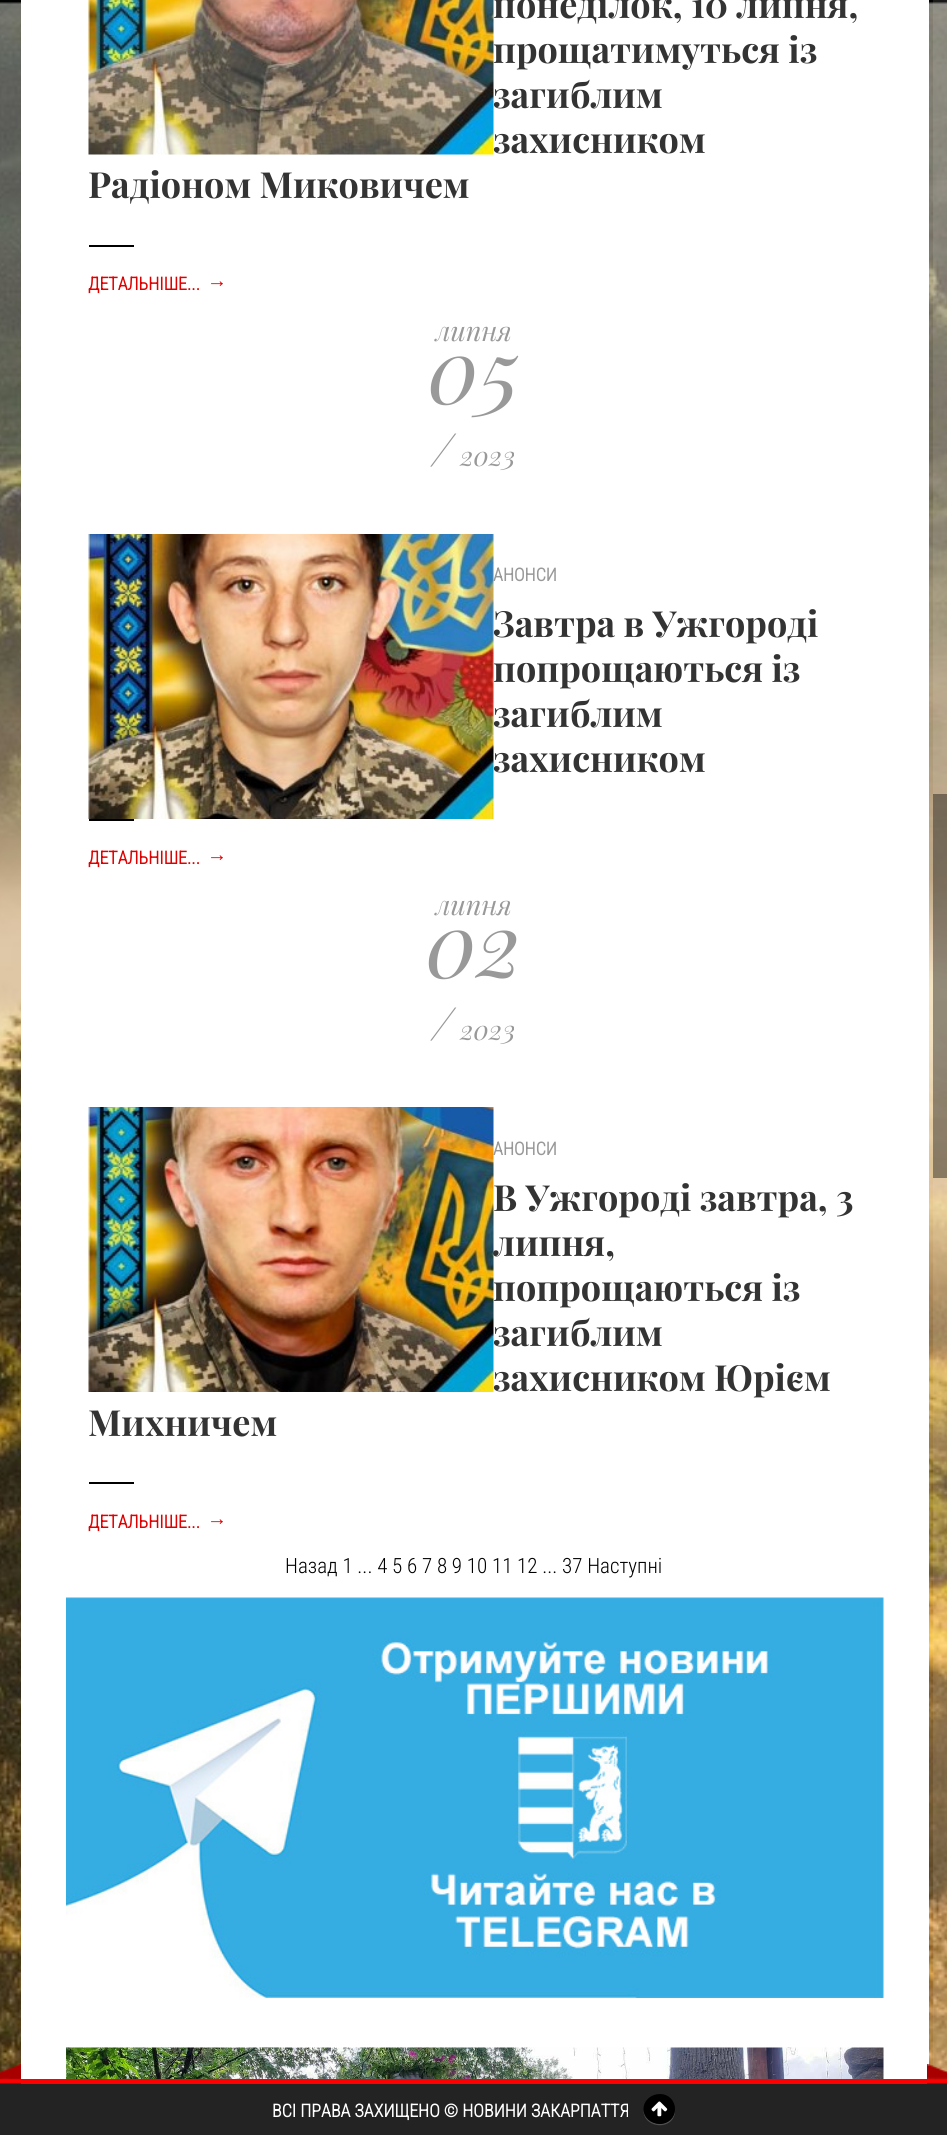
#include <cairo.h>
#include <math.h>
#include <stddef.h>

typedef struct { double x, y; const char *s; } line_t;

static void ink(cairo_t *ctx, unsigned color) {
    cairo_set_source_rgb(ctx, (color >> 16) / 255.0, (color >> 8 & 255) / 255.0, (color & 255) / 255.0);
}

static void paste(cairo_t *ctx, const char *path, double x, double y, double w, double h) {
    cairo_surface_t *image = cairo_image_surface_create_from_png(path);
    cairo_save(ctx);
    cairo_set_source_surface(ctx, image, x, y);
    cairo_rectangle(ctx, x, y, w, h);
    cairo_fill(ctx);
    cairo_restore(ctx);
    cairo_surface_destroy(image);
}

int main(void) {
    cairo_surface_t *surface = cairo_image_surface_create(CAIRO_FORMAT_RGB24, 947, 2135);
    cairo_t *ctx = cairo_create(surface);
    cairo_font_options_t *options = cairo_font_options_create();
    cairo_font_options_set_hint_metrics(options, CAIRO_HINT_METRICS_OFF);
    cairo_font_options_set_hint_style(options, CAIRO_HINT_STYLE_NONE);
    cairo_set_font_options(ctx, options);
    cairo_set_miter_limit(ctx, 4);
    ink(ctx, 0xFFFFFF);
    cairo_paint(ctx);
    paste(ctx, "media/1.png", 0, 0, 947, 2080);
    ink(ctx, 0xFFFFFF);
    cairo_rectangle(ctx, 21, 0, 908, 2080);
    cairo_fill(ctx);
    paste(ctx, "media/2.png", 88, 0, 406, 155);
    cairo_select_font_face(ctx, "Playfair Display", CAIRO_FONT_SLANT_NORMAL, CAIRO_FONT_WEIGHT_BOLD);
    cairo_set_font_size(ctx, 36);
    ink(ctx, 0x333333);
    {
        static const line_t items[] = {
            {493, 18, "понеділок, 10 липня,"},
            {493, 63, "прощатимуться із"},
            {493, 108, "загиблим"},
            {493, 153, "захисником"},
            {88, 198, "Радіоном Миковичем"},
        };
        for (size_t i = 0; i < sizeof items / sizeof *items; i++) {
            cairo_move_to(ctx, items[i].x, items[i].y);
            cairo_show_text(ctx, items[i].s);
        }
    }
    ink(ctx, 0x000000);
    cairo_rectangle(ctx, 89, 245, 45, 2);
    cairo_fill(ctx);
    cairo_select_font_face(ctx, "Roboto Condensed", CAIRO_FONT_SLANT_NORMAL, CAIRO_FONT_WEIGHT_BOLD);
    cairo_set_font_size(ctx, 18);
    ink(ctx, 0xE00000);
    cairo_move_to(ctx, 88, 290);
    cairo_show_text(ctx, "ДЕТАЛЬНІШЕ...");
    cairo_select_font_face(ctx, "Liberation Serif", CAIRO_FONT_SLANT_ITALIC, CAIRO_FONT_WEIGHT_BOLD);
    cairo_set_font_size(ctx, 20);
    cairo_move_to(ctx, 207, 287);
    cairo_show_text(ctx, "→");
    cairo_select_font_face(ctx, "Playfair Display", CAIRO_FONT_SLANT_ITALIC, CAIRO_FONT_WEIGHT_NORMAL);
    cairo_set_font_size(ctx, 27);
    ink(ctx, 0x999999);
    cairo_move_to(ctx, 436, 341);
    cairo_show_text(ctx, "липня");
    cairo_set_font_size(ctx, 90);
    cairo_move_to(ctx, 428, 404);
    cairo_show_text(ctx, "05");
    cairo_set_font_size(ctx, 45);
    cairo_move_to(ctx, 432, 466);
    cairo_show_text(ctx, "/");
    cairo_set_font_size(ctx, 27);
    cairo_move_to(ctx, 460, 466);
    cairo_show_text(ctx, "2023");
    paste(ctx, "media/3.png", 88, 534, 406, 285);
    cairo_select_font_face(ctx, "Roboto Condensed", CAIRO_FONT_SLANT_NORMAL, CAIRO_FONT_WEIGHT_BOLD);
    cairo_set_font_size(ctx, 18);
    cairo_move_to(ctx, 493, 581);
    cairo_show_text(ctx, "АНОНСИ");
    cairo_select_font_face(ctx, "Playfair Display", CAIRO_FONT_SLANT_NORMAL, CAIRO_FONT_WEIGHT_BOLD);
    cairo_set_font_size(ctx, 36);
    ink(ctx, 0x333333);
    {
        static const line_t items[] = {
            {493, 637, "Завтра в Ужгороді"},
            {493, 682, "попрощаються із"},
            {493, 727, "загиблим"},
            {493, 772, "захисником"},
        };
        for (size_t i = 0; i < sizeof items / sizeof *items; i++) {
            cairo_move_to(ctx, items[i].x, items[i].y);
            cairo_show_text(ctx, items[i].s);
        }
    }
    ink(ctx, 0x000000);
    cairo_rectangle(ctx, 89, 819, 45, 2);
    cairo_fill(ctx);
    cairo_select_font_face(ctx, "Roboto Condensed", CAIRO_FONT_SLANT_NORMAL, CAIRO_FONT_WEIGHT_BOLD);
    cairo_set_font_size(ctx, 18);
    ink(ctx, 0xE00000);
    cairo_move_to(ctx, 88, 864);
    cairo_show_text(ctx, "ДЕТАЛЬНІШЕ...");
    cairo_select_font_face(ctx, "Liberation Serif", CAIRO_FONT_SLANT_ITALIC, CAIRO_FONT_WEIGHT_BOLD);
    cairo_set_font_size(ctx, 20);
    cairo_move_to(ctx, 207, 861);
    cairo_show_text(ctx, "→");
    cairo_select_font_face(ctx, "Playfair Display", CAIRO_FONT_SLANT_ITALIC, CAIRO_FONT_WEIGHT_NORMAL);
    cairo_set_font_size(ctx, 27);
    ink(ctx, 0x999999);
    cairo_move_to(ctx, 436, 915);
    cairo_show_text(ctx, "липня");
    cairo_set_font_size(ctx, 90);
    cairo_move_to(ctx, 426, 978);
    cairo_show_text(ctx, "02");
    cairo_set_font_size(ctx, 45);
    cairo_move_to(ctx, 432, 1040);
    cairo_show_text(ctx, "/");
    cairo_set_font_size(ctx, 27);
    cairo_move_to(ctx, 460, 1040);
    cairo_show_text(ctx, "2023");
    paste(ctx, "media/4.png", 88, 1107, 406, 285);
    cairo_select_font_face(ctx, "Roboto Condensed", CAIRO_FONT_SLANT_NORMAL, CAIRO_FONT_WEIGHT_BOLD);
    cairo_set_font_size(ctx, 18);
    cairo_move_to(ctx, 493, 1155);
    cairo_show_text(ctx, "АНОНСИ");
    cairo_select_font_face(ctx, "Playfair Display", CAIRO_FONT_SLANT_NORMAL, CAIRO_FONT_WEIGHT_BOLD);
    cairo_set_font_size(ctx, 36);
    ink(ctx, 0x333333);
    {
        static const line_t items[] = {
            {493, 1211, "В Ужгороді завтра, 3"},
            {493, 1256, "липня,"},
            {493, 1301, "попрощаються із"},
            {493, 1346, "загиблим"},
            {493, 1391, "захисником Юрієм"},
            {88, 1436, "Михничем"},
        };
        for (size_t i = 0; i < sizeof items / sizeof *items; i++) {
            cairo_move_to(ctx, items[i].x, items[i].y);
            cairo_show_text(ctx, items[i].s);
        }
    }
    ink(ctx, 0x000000);
    cairo_rectangle(ctx, 89, 1482, 45, 2);
    cairo_fill(ctx);
    cairo_select_font_face(ctx, "Roboto Condensed", CAIRO_FONT_SLANT_NORMAL, CAIRO_FONT_WEIGHT_BOLD);
    cairo_set_font_size(ctx, 18);
    ink(ctx, 0xE00000);
    cairo_move_to(ctx, 88, 1528);
    cairo_show_text(ctx, "ДЕТАЛЬНІШЕ...");
    cairo_select_font_face(ctx, "Liberation Serif", CAIRO_FONT_SLANT_ITALIC, CAIRO_FONT_WEIGHT_BOLD);
    cairo_set_font_size(ctx, 20);
    cairo_move_to(ctx, 207, 1525);
    cairo_show_text(ctx, "→");
    cairo_select_font_face(ctx, "Roboto Condensed Light", CAIRO_FONT_SLANT_NORMAL, CAIRO_FONT_WEIGHT_NORMAL);
    cairo_set_font_size(ctx, 21);
    ink(ctx, 0x000000);
    cairo_move_to(ctx, 285, 1573);
    cairo_show_text(ctx, "Назад 1 ... 4 5 6 7 8 9 10 11 12 ... 37 Наступні");
    paste(ctx, "media/5.png", 66, 1597, 818, 401);
    paste(ctx, "media/6.png", 66, 2047, 818, 32);
    ink(ctx, 0x232323);
    cairo_rectangle(ctx, 21, 2084, 906, 51);
    cairo_fill(ctx);
    ink(ctx, 0xFF0000);
    cairo_rectangle(ctx, 21, 2079, 906, 5);
    cairo_fill(ctx);
    paste(ctx, "media/7.png", 0, 2064, 21, 71);
    cairo_select_font_face(ctx, "Roboto Condensed", CAIRO_FONT_SLANT_NORMAL, CAIRO_FONT_WEIGHT_BOLD);
    cairo_set_font_size(ctx, 18);
    ink(ctx, 0xFFFFFF);
    cairo_move_to(ctx, 272, 2117);
    cairo_show_text(ctx, "ВСІ ПРАВА ЗАХИЩЕНО © НОВИНИ ЗАКАРПАТТЯ");
    ink(ctx, 0x4F4F4F);
    cairo_new_path(ctx);
    cairo_move_to(ctx, 675, 2109.5);
    cairo_curve_to(ctx, 674, 2129, 644.5, 2128, 643.5, 2109.5);
    cairo_curve_to(ctx, 642.5, 2129.5, 676, 2131.5, 675, 2109.5);
    cairo_close_path(ctx);
    cairo_fill(ctx);
    ink(ctx, 0x000000);
    cairo_new_path(ctx);
    cairo_move_to(ctx, 660, 2094);
    cairo_curve_to(ctx, 668.5, 2094, 675, 2100.5, 675, 2109);
    cairo_curve_to(ctx, 675, 2117.5, 668.5, 2124, 660, 2124);
    cairo_curve_to(ctx, 651, 2124, 643.5, 2117.5, 643.5, 2109);
    cairo_curve_to(ctx, 643.5, 2100.5, 651, 2094, 660, 2094);
    cairo_close_path(ctx);
    cairo_fill(ctx);
    paste(ctx, "media/8.png", 651, 2101, 17, 16);
    cairo_set_source_rgba(ctx, 1, 1, 1, 0.1);
    cairo_rectangle(ctx, 933, 0, 14, 2080);
    cairo_fill(ctx);
    paste(ctx, "media/9.png", 927, 2064, 20, 71);
    cairo_set_source_rgba(ctx, 0, 0, 0, 0.4);
    cairo_rectangle(ctx, 933, 794, 14, 384);
    cairo_fill(ctx);
    cairo_surface_write_to_png(surface, "image.png");
    cairo_font_options_destroy(options);
    cairo_destroy(ctx);
    cairo_surface_destroy(surface);
    return 0;
}
